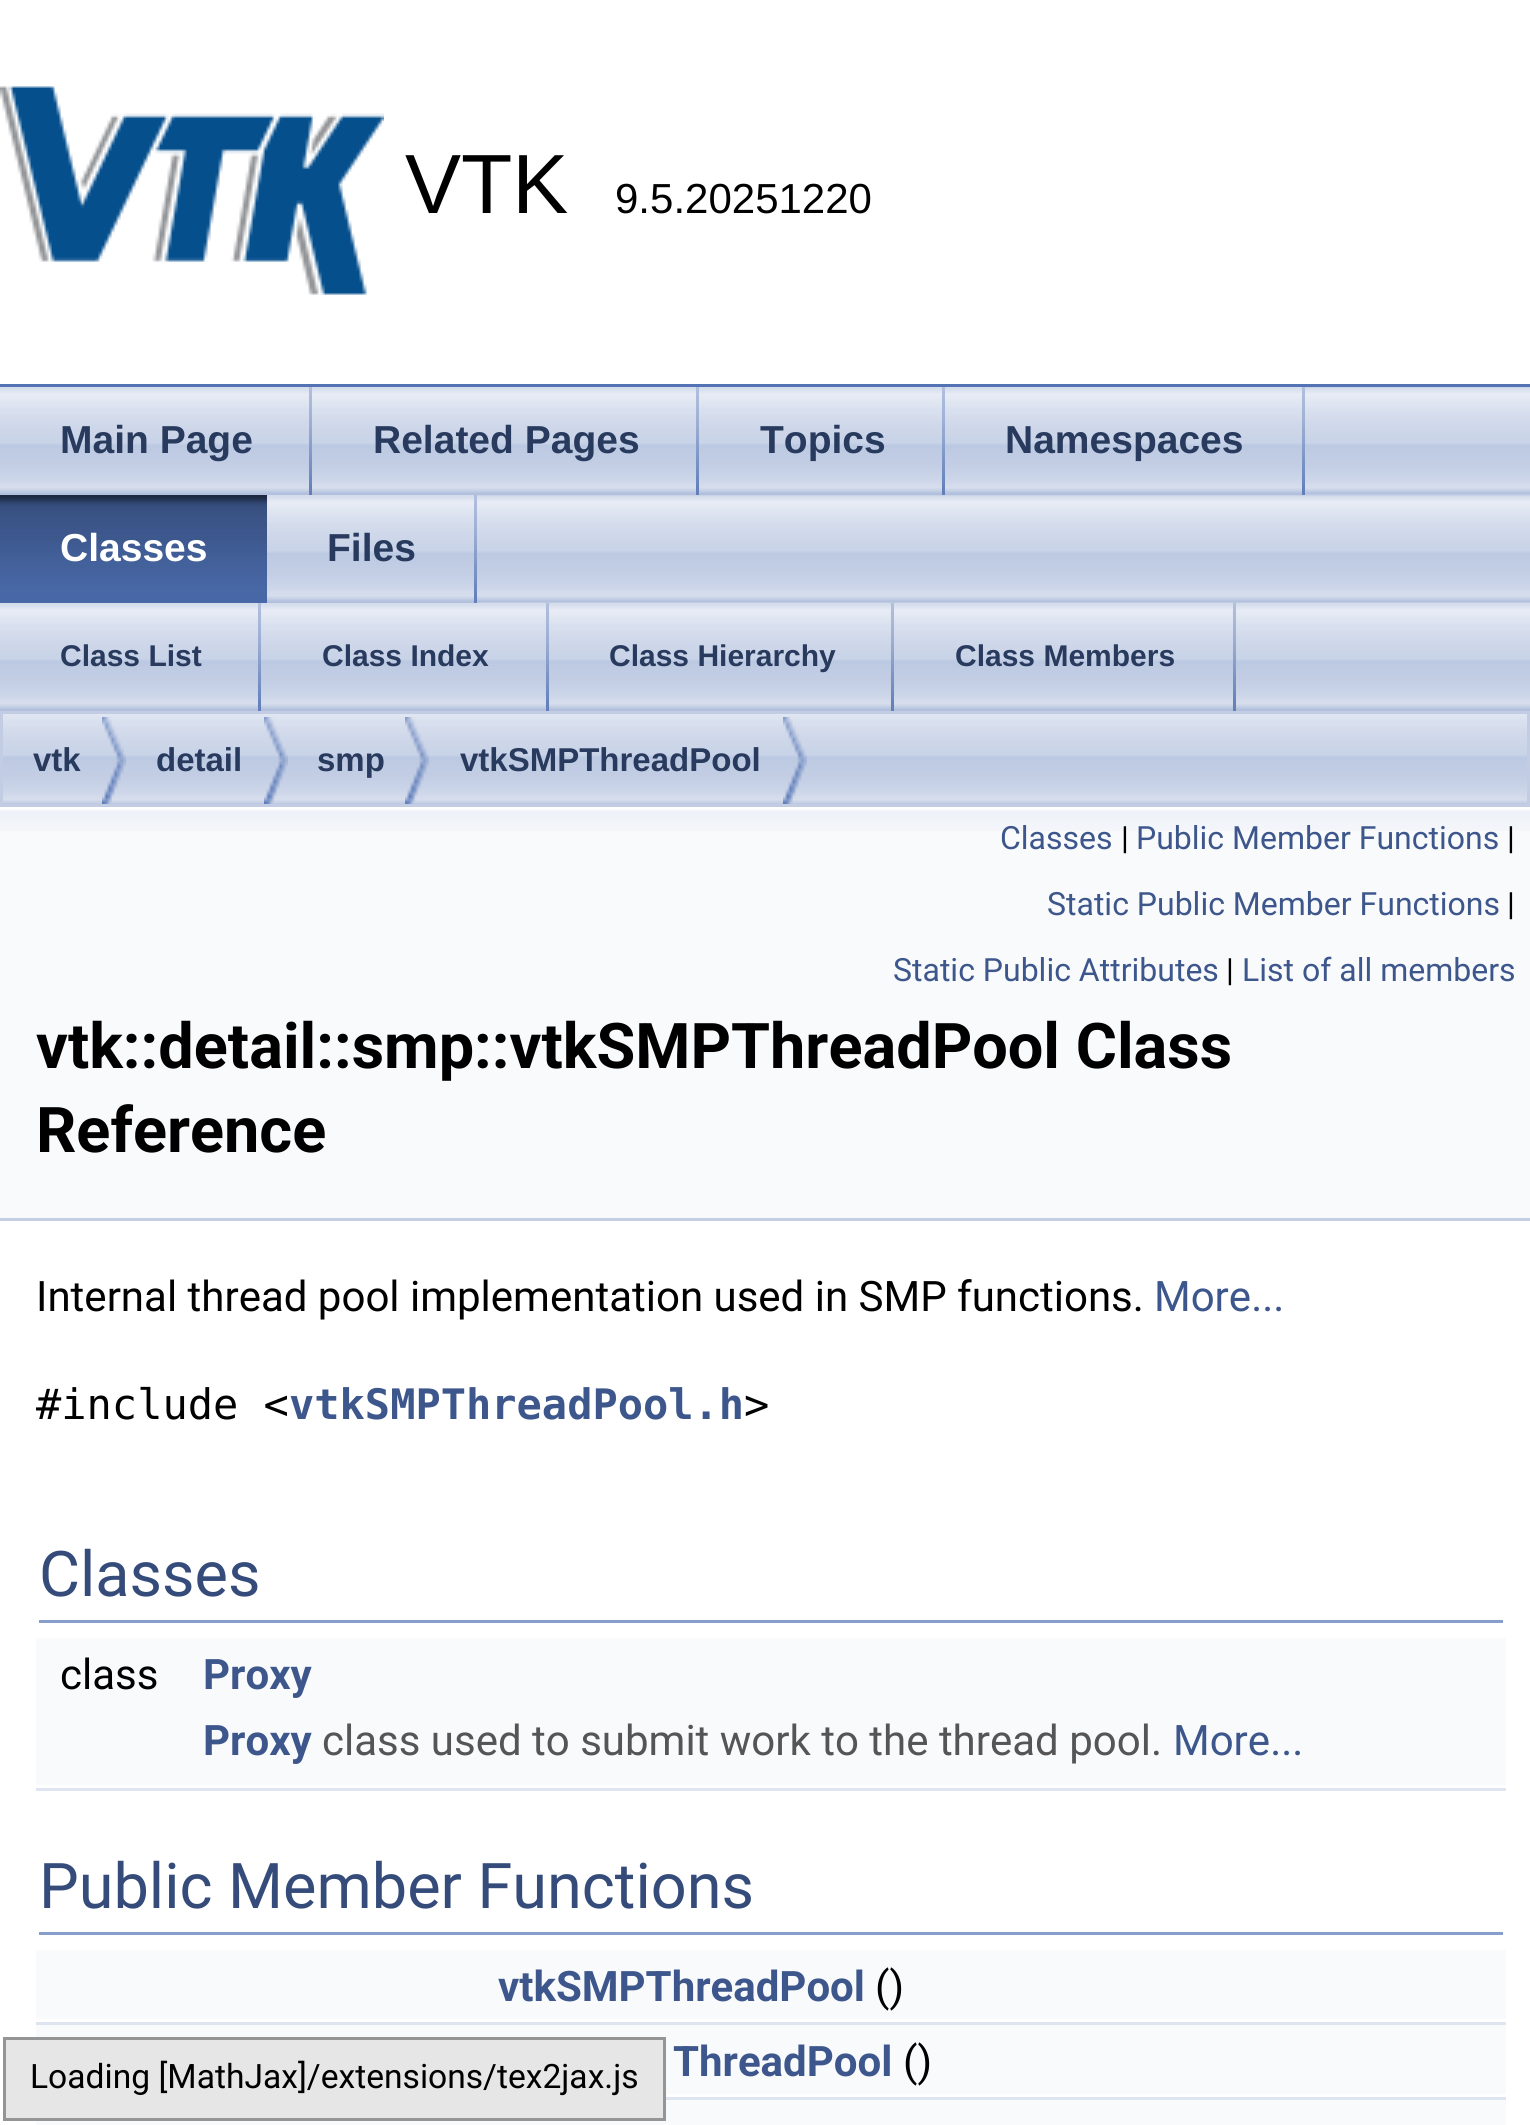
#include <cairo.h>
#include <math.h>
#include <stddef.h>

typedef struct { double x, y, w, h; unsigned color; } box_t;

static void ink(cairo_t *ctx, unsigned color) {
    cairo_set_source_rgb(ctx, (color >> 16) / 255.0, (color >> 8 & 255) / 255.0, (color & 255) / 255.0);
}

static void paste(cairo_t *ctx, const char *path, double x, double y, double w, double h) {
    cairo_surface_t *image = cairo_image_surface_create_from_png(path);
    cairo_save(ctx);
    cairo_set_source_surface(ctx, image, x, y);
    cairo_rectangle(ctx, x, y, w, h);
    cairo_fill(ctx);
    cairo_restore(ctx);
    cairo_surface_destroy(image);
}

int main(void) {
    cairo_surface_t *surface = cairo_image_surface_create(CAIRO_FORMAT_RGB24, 1530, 2125);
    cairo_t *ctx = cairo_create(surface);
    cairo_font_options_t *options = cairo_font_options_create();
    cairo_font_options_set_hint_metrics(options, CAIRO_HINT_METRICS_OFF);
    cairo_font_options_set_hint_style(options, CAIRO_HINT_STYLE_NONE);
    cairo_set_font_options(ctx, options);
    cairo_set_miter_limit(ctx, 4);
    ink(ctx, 0xFFFFFF);
    cairo_paint(ctx);
    ink(ctx, 0x5373B4);
    cairo_rectangle(ctx, 0, 384, 1530, 3);
    cairo_fill(ctx);
    paste(ctx, "media/1.png", 0, 86, 384, 209);
    cairo_select_font_face(ctx, "Liberation Sans", CAIRO_FONT_SLANT_NORMAL, CAIRO_FONT_WEIGHT_NORMAL);
    cairo_set_font_size(ctx, 84);
    ink(ctx, 0x000000);
    cairo_move_to(ctx, 405, 213);
    cairo_show_text(ctx, "VTK");
    cairo_set_font_size(ctx, 42);
    cairo_move_to(ctx, 615, 213);
    cairo_show_text(ctx, "9.5.20251220");
    paste(ctx, "media/2.png", 477, 387, 1053, 216);
    paste(ctx, "media/3.png", 0, 387, 309, 108);
    paste(ctx, "media/4.png", 309, 387, 3, 108);
    cairo_select_font_face(ctx, "Liberation Sans", CAIRO_FONT_SLANT_NORMAL, CAIRO_FONT_WEIGHT_BOLD);
    cairo_set_font_size(ctx, 39);
    ink(ctx, 0x283A5D);
    cairo_move_to(ctx, 60, 453);
    cairo_show_text(ctx, "Main Page");
    paste(ctx, "media/5.png", 312, 387, 384, 108);
    paste(ctx, "media/4.png", 696, 387, 3, 108);
    cairo_move_to(ctx, 373, 453);
    cairo_show_text(ctx, "Related Pages");
    paste(ctx, "media/6.png", 699, 387, 243, 108);
    paste(ctx, "media/4.png", 942, 387, 3, 108);
    cairo_move_to(ctx, 760, 453);
    cairo_show_text(ctx, "Topics");
    paste(ctx, "media/7.png", 945, 387, 357, 108);
    paste(ctx, "media/4.png", 1302, 387, 3, 108);
    cairo_move_to(ctx, 1005, 453);
    cairo_show_text(ctx, "Namespaces");
    paste(ctx, "media/8.png", 0, 495, 267, 108);
    ink(ctx, 0xFFFFFF);
    cairo_move_to(ctx, 60, 561);
    cairo_show_text(ctx, "Classes");
    paste(ctx, "media/9.png", 267, 495, 207, 108);
    paste(ctx, "media/4.png", 474, 495, 3, 108);
    ink(ctx, 0x283A5D);
    cairo_move_to(ctx, 327, 561);
    cairo_show_text(ctx, "Files");
    paste(ctx, "media/10.png", 0, 603, 1530, 108);
    paste(ctx, "media/4.png", 258, 603, 3, 108);
    cairo_set_font_size(ctx, 30);
    cairo_move_to(ctx, 60, 666);
    cairo_show_text(ctx, "Class List");
    paste(ctx, "media/4.png", 546, 603, 3, 108);
    cairo_move_to(ctx, 322, 666);
    cairo_show_text(ctx, "Class Index");
    paste(ctx, "media/4.png", 891, 603, 3, 108);
    cairo_move_to(ctx, 609, 666);
    cairo_show_text(ctx, "Class Hierarchy");
    paste(ctx, "media/4.png", 1233, 603, 3, 108);
    cairo_move_to(ctx, 955, 666);
    cairo_show_text(ctx, "Class Members");
    paste(ctx, "media/11.png", 3, 714, 1524, 90);
    cairo_rectangle(ctx, 1.5, 712.5, 1527, 93);
    ink(ctx, 0xC2CDE4);
    cairo_set_line_width(ctx, 3);
    cairo_stroke(ctx);
    paste(ctx, "media/12.png", 102, 717, 24, 87);
    cairo_set_font_size(ctx, 33);
    ink(ctx, 0x283A5D);
    cairo_move_to(ctx, 33, 771);
    cairo_show_text(ctx, "vtk");
    paste(ctx, "media/13.png", 264, 717, 24, 87);
    cairo_move_to(ctx, 156, 771);
    cairo_show_text(ctx, "detail");
    paste(ctx, "media/14.png", 405, 717, 24, 87);
    cairo_move_to(ctx, 317, 771);
    cairo_show_text(ctx, "smp");
    paste(ctx, "media/12.png", 783, 717, 24, 87);
    cairo_move_to(ctx, 460, 771);
    cairo_show_text(ctx, "vtkSMPThreadPool");
    ink(ctx, 0xF9FAFC);
    cairo_rectangle(ctx, 0, 831, 1530, 387);
    cairo_fill(ctx);
    paste(ctx, "media/15.png", 0, 807, 1530, 24);
    ink(ctx, 0xC4CFE5);
    cairo_rectangle(ctx, 0, 1218, 1530, 3);
    cairo_fill(ctx);
    cairo_select_font_face(ctx, "Roboto", CAIRO_FONT_SLANT_NORMAL, CAIRO_FONT_WEIGHT_NORMAL);
    cairo_set_font_size(ctx, 32);
    ink(ctx, 0x3D578C);
    cairo_move_to(ctx, 1000, 849);
    cairo_show_text(ctx, "Classes");
    ink(ctx, 0x000000);
    cairo_move_to(ctx, 1121, 849);
    cairo_show_text(ctx, "|");
    ink(ctx, 0x3D578C);
    cairo_move_to(ctx, 1136, 849);
    cairo_show_text(ctx, "Public Member Functions");
    ink(ctx, 0x000000);
    cairo_move_to(ctx, 1507, 849);
    cairo_show_text(ctx, "|");
    ink(ctx, 0x3D578C);
    cairo_move_to(ctx, 1047, 915);
    cairo_show_text(ctx, "Static Public Member Functions");
    ink(ctx, 0x000000);
    cairo_move_to(ctx, 1507, 915);
    cairo_show_text(ctx, "|");
    ink(ctx, 0x3D578C);
    cairo_move_to(ctx, 893, 981);
    cairo_show_text(ctx, "Static Public Attributes");
    ink(ctx, 0x000000);
    cairo_move_to(ctx, 1226, 981);
    cairo_show_text(ctx, "|");
    ink(ctx, 0x3D578C);
    cairo_move_to(ctx, 1242, 981);
    cairo_show_text(ctx, "List of all members");
    cairo_select_font_face(ctx, "Roboto", CAIRO_FONT_SLANT_NORMAL, CAIRO_FONT_WEIGHT_BOLD);
    cairo_set_font_size(ctx, 63);
    ink(ctx, 0x000000);
    cairo_move_to(ctx, 36, 1068);
    cairo_show_text(ctx, "vtk::detail::smp::vtkSMPThreadPool Class");
    cairo_move_to(ctx, 36, 1152);
    cairo_show_text(ctx, "Reference");
    cairo_select_font_face(ctx, "Roboto", CAIRO_FONT_SLANT_NORMAL, CAIRO_FONT_WEIGHT_NORMAL);
    cairo_set_font_size(ctx, 42);
    cairo_move_to(ctx, 36, 1311);
    cairo_show_text(ctx, "Internal thread pool implementation used in SMP functions.");
    ink(ctx, 0x3D578C);
    cairo_move_to(ctx, 1154, 1311);
    cairo_show_text(ctx, "More...");
    cairo_select_font_face(ctx, "DejaVu Sans Mono", CAIRO_FONT_SLANT_NORMAL, CAIRO_FONT_WEIGHT_NORMAL);
    ink(ctx, 0x000000);
    cairo_move_to(ctx, 36, 1419);
    cairo_show_text(ctx, "#include <");
    cairo_select_font_face(ctx, "DejaVu Sans Mono", CAIRO_FONT_SLANT_NORMAL, CAIRO_FONT_WEIGHT_BOLD);
    ink(ctx, 0x3D578C);
    cairo_move_to(ctx, 289, 1419);
    cairo_show_text(ctx, "vtkSMPThreadPool.h");
    cairo_select_font_face(ctx, "DejaVu Sans Mono", CAIRO_FONT_SLANT_NORMAL, CAIRO_FONT_WEIGHT_NORMAL);
    ink(ctx, 0x000000);
    cairo_move_to(ctx, 744, 1419);
    cairo_show_text(ctx, ">");
    ink(ctx, 0x879ECB);
    cairo_rectangle(ctx, 39, 1620, 1464, 3);
    cairo_fill(ctx);
    cairo_select_font_face(ctx, "Roboto", CAIRO_FONT_SLANT_NORMAL, CAIRO_FONT_WEIGHT_NORMAL);
    cairo_set_font_size(ctx, 63);
    ink(ctx, 0x354C7B);
    cairo_move_to(ctx, 39, 1596);
    cairo_show_text(ctx, "Classes");
    ink(ctx, 0xF9FAFC);
    cairo_rectangle(ctx, 36, 1638, 1470, 69);
    cairo_fill(ctx);
    cairo_set_font_size(ctx, 42);
    ink(ctx, 0x000000);
    cairo_move_to(ctx, 60, 1689);
    cairo_show_text(ctx, "class");
    cairo_select_font_face(ctx, "Roboto", CAIRO_FONT_SLANT_NORMAL, CAIRO_FONT_WEIGHT_BOLD);
    ink(ctx, 0x3D578C);
    cairo_move_to(ctx, 203, 1689);
    cairo_show_text(ctx, "Proxy");
    ink(ctx, 0xF9FAFC);
    cairo_rectangle(ctx, 36, 1707, 1470, 78);
    cairo_fill(ctx);
    ink(ctx, 0x3D578C);
    cairo_move_to(ctx, 203, 1755);
    cairo_show_text(ctx, "Proxy");
    cairo_select_font_face(ctx, "Roboto", CAIRO_FONT_SLANT_NORMAL, CAIRO_FONT_WEIGHT_NORMAL);
    ink(ctx, 0x555555);
    cairo_move_to(ctx, 322, 1755);
    cairo_show_text(ctx, "class used to submit work to the thread pool.");
    ink(ctx, 0x3D578C);
    cairo_move_to(ctx, 1173, 1755);
    cairo_show_text(ctx, "More...");
    ink(ctx, 0xDEE4F0);
    cairo_rectangle(ctx, 36, 1788, 1470, 3);
    cairo_fill(ctx);
    ink(ctx, 0x879ECB);
    cairo_rectangle(ctx, 39, 1932, 1464, 3);
    cairo_fill(ctx);
    cairo_set_font_size(ctx, 63);
    ink(ctx, 0x354C7B);
    cairo_move_to(ctx, 39, 1908);
    cairo_show_text(ctx, "Public Member Functions");
    ink(ctx, 0xF9FAFC);
    cairo_rectangle(ctx, 36, 1950, 1470, 69);
    cairo_fill(ctx);
    cairo_select_font_face(ctx, "Roboto", CAIRO_FONT_SLANT_NORMAL, CAIRO_FONT_WEIGHT_BOLD);
    cairo_set_font_size(ctx, 42);
    ink(ctx, 0x3D578C);
    cairo_move_to(ctx, 498, 2001);
    cairo_show_text(ctx, "vtkSMPThreadPool");
    cairo_select_font_face(ctx, "Roboto", CAIRO_FONT_SLANT_NORMAL, CAIRO_FONT_WEIGHT_NORMAL);
    ink(ctx, 0x000000);
    cairo_move_to(ctx, 875, 2001);
    cairo_show_text(ctx, "()");
    {
        static const box_t items[] = {
            {36, 2022, 1470, 3, 0xDEE4F0},
            {36, 2025, 438, 12, 0xF9FAFC},
            {474, 2025, 1032, 69, 0xF9FAFC},
        };
        for (size_t i = 0; i < sizeof items / sizeof *items; i++) {
            ink(ctx, items[i].color);
            cairo_rectangle(ctx, items[i].x, items[i].y, items[i].w, items[i].h);
            cairo_fill(ctx);
        }
    }
    cairo_select_font_face(ctx, "Roboto", CAIRO_FONT_SLANT_NORMAL, CAIRO_FONT_WEIGHT_BOLD);
    ink(ctx, 0x3D578C);
    cairo_move_to(ctx, 673, 2076);
    cairo_show_text(ctx, "ThreadPool");
    cairo_select_font_face(ctx, "Roboto", CAIRO_FONT_SLANT_NORMAL, CAIRO_FONT_WEIGHT_NORMAL);
    ink(ctx, 0x000000);
    cairo_move_to(ctx, 903, 2076);
    cairo_show_text(ctx, "()");
    {
        static const box_t items[] = {
            {666, 2097, 840, 3, 0xDEE4F0},
            {36, 2121, 438, 4, 0xF9FAFC},
            {474, 2100, 1032, 25, 0xF9FAFC},
        };
        for (size_t i = 0; i < sizeof items / sizeof *items; i++) {
            ink(ctx, items[i].color);
            cairo_rectangle(ctx, items[i].x, items[i].y, items[i].w, items[i].h);
            cairo_fill(ctx);
        }
    }
    ink(ctx, 0xE6E6E6);
    cairo_rectangle(ctx, 4.5, 2038.5, 660, 81);
    cairo_fill_preserve(ctx);
    ink(ctx, 0x959595);
    cairo_stroke(ctx);
    cairo_set_font_size(ctx, 33.6);
    ink(ctx, 0x000000);
    cairo_move_to(ctx, 30, 2088);
    cairo_show_text(ctx, "Loading [MathJax]/extensions/tex2jax.js");
    cairo_surface_write_to_png(surface, "image.png");
    cairo_font_options_destroy(options);
    cairo_destroy(ctx);
    cairo_surface_destroy(surface);
    return 0;
}
